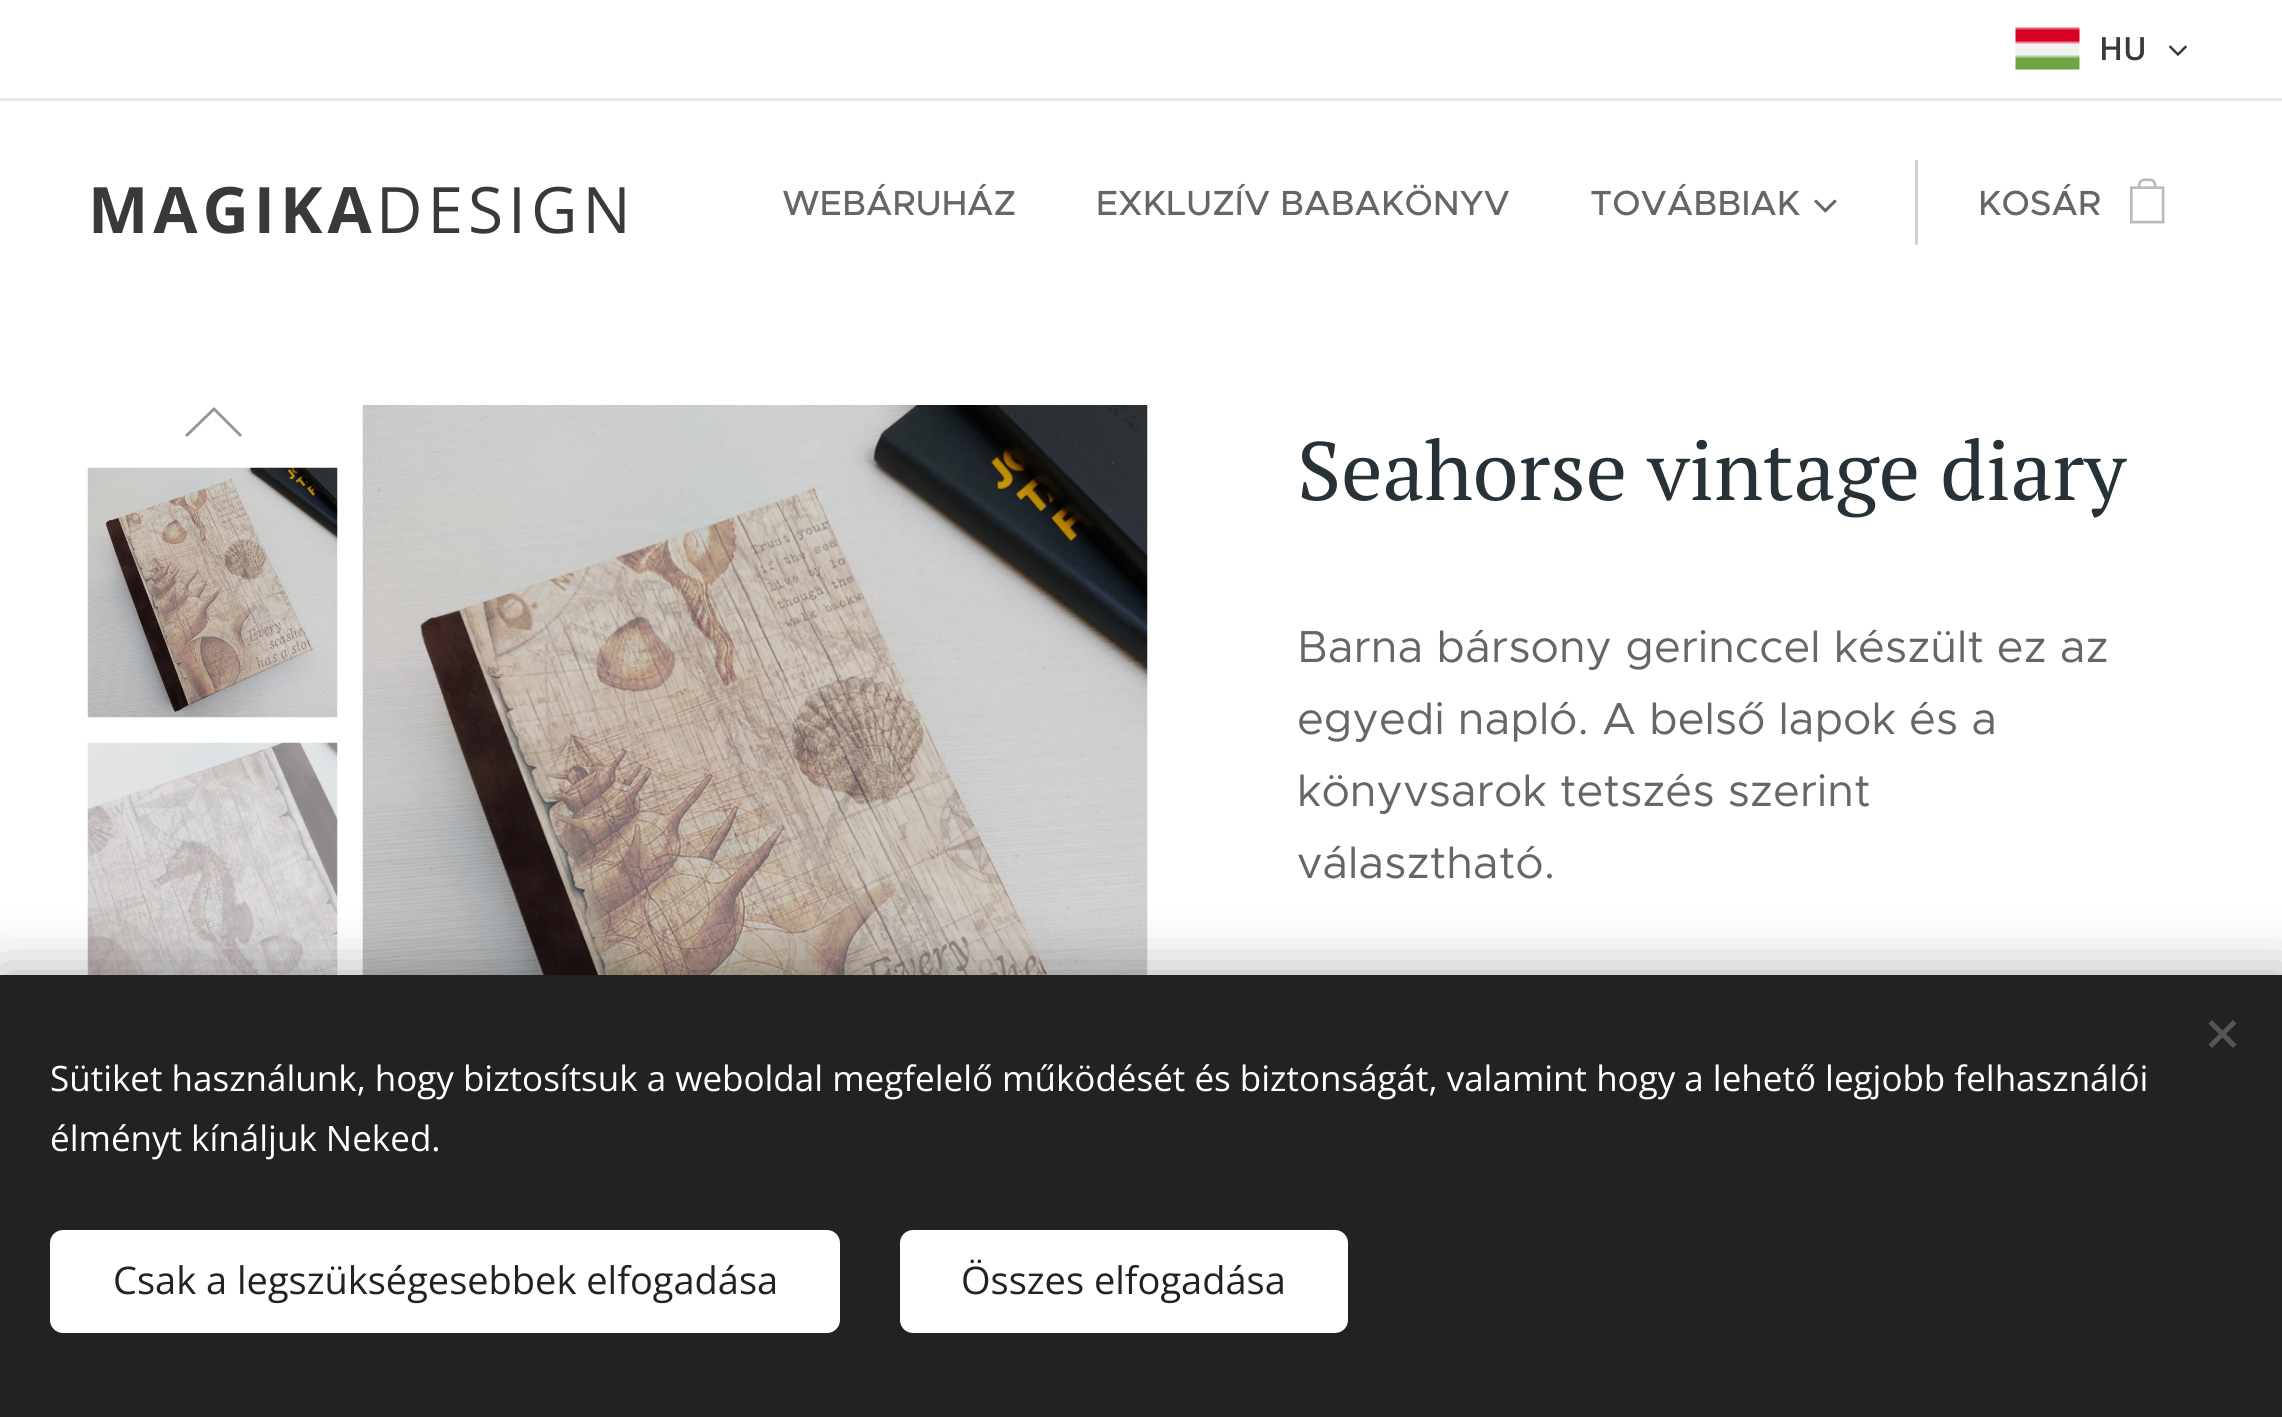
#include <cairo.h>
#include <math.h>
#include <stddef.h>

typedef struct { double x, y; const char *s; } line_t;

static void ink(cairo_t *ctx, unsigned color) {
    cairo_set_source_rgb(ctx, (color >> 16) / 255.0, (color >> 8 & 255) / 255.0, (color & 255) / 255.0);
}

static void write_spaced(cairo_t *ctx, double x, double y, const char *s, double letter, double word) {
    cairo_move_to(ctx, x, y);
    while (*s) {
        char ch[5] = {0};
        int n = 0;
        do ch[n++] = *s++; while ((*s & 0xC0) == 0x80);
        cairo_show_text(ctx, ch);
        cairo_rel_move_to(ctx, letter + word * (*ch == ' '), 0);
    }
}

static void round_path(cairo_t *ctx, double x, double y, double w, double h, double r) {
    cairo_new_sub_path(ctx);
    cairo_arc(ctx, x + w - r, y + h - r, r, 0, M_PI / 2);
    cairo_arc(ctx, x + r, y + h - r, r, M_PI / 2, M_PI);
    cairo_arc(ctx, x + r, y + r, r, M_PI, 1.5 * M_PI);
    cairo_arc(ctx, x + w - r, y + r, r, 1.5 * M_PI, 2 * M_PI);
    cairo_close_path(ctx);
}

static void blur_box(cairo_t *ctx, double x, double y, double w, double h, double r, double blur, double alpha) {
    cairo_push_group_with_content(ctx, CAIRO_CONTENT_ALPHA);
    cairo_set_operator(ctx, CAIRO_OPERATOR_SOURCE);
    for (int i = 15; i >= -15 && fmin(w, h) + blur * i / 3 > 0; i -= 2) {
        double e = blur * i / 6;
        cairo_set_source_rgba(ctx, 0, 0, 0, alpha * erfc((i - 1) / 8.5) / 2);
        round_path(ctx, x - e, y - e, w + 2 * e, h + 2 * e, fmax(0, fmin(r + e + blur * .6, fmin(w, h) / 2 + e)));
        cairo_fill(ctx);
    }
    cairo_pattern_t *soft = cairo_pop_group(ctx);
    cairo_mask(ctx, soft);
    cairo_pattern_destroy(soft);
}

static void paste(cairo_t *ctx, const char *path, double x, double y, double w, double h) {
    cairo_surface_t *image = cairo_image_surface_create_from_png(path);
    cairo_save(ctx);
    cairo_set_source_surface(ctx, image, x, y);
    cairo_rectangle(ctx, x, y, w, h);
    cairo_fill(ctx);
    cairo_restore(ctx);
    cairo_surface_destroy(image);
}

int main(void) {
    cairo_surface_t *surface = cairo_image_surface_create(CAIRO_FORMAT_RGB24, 2282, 1417);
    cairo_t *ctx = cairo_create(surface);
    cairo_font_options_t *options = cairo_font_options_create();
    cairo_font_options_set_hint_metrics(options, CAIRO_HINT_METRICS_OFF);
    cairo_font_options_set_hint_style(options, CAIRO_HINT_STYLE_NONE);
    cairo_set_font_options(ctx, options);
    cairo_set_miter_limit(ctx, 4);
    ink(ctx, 0xFFFFFF);
    cairo_paint(ctx);
    paste(ctx, "media/1.png", 2015, 27, 65, 43);
    cairo_select_font_face(ctx, "Open Sans SemiBold", CAIRO_FONT_SLANT_NORMAL, CAIRO_FONT_WEIGHT_NORMAL);
    cairo_set_font_size(ctx, 32);
    ink(ctx, 0x393939);
    cairo_move_to(ctx, 2099, 60);
    cairo_show_text(ctx, "HU");
    paste(ctx, "media/2.png", 2169, 45, 18, 11);
    ink(ctx, 0xE8E8E8);
    cairo_rectangle(ctx, 0, 98, 2282, 3);
    cairo_fill(ctx);
    cairo_select_font_face(ctx, "Open Sans", CAIRO_FONT_SLANT_NORMAL, CAIRO_FONT_WEIGHT_BOLD);
    cairo_set_font_size(ctx, 64);
    ink(ctx, 0x393939);
    write_spaced(ctx, 88, 233, "MAGIKA", 5, 0);
    cairo_select_font_face(ctx, "Open Sans", CAIRO_FONT_SLANT_NORMAL, CAIRO_FONT_WEIGHT_NORMAL);
    write_spaced(ctx, 376, 233, "DESIGN", 5, 0);
    cairo_select_font_face(ctx, "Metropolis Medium", CAIRO_FONT_SLANT_NORMAL, CAIRO_FONT_WEIGHT_NORMAL);
    cairo_set_font_size(ctx, 35);
    ink(ctx, 0x666666);
    {
        static const line_t items[] = {
            {782, 215, "WEBÁRUHÁZ"},
            {1096, 215, "EXKLUZÍV BABAKÖNYV"},
            {1590, 215, "TOVÁBBIAK"},
        };
        for (size_t i = 0; i < sizeof items / sizeof *items; i++) {
            cairo_move_to(ctx, items[i].x, items[i].y);
            cairo_show_text(ctx, items[i].s);
        }
    }
    paste(ctx, "media/3.png", 1814, 199, 23, 14);
    ink(ctx, 0xD1D1D1);
    cairo_rectangle(ctx, 1915, 160, 3, 85);
    cairo_fill(ctx);
    ink(ctx, 0x666666);
    cairo_move_to(ctx, 1978, 215);
    cairo_show_text(ctx, "KOSÁR");
    paste(ctx, "media/4.png", 2130, 178, 35, 46);
    ink(ctx, 0x949494);
    cairo_new_path(ctx);
    cairo_move_to(ctx, 185, 435);
    cairo_line_to(ctx, 187, 437);
    cairo_line_to(ctx, 214, 411);
    cairo_line_to(ctx, 240, 437);
    cairo_line_to(ctx, 242, 435);
    cairo_line_to(ctx, 214, 407);
    cairo_close_path(ctx);
    cairo_fill(ctx);
    paste(ctx, "media/5.png", 87, 467, 251, 251);
    paste(ctx, "media/6.png", 87, 742, 251, 233);
    paste(ctx, "media/7.png", 362, 405, 786, 570);
    cairo_select_font_face(ctx, "PT Serif", CAIRO_FONT_SLANT_NORMAL, CAIRO_FONT_WEIGHT_NORMAL);
    cairo_set_font_size(ctx, 82.5);
    ink(ctx, 0x263238);
    cairo_move_to(ctx, 1297, 500);
    cairo_show_text(ctx, "Seahorse vintage diary");
    cairo_select_font_face(ctx, "Metropolis", CAIRO_FONT_SLANT_NORMAL, CAIRO_FONT_WEIGHT_NORMAL);
    cairo_set_font_size(ctx, 45);
    ink(ctx, 0x666666);
    {
        static const line_t items[] = {
            {1297, 662, "Barna bársony gerinccel készült ez az"},
            {1297, 734, "egyedi napló. A belső lapok és a"},
            {1297, 806, "könyvsarok tetszés szerint"},
            {1297, 878, "választható."},
        };
        for (size_t i = 0; i < sizeof items / sizeof *items; i++) {
            cairo_move_to(ctx, items[i].x, items[i].y);
            cairo_show_text(ctx, items[i].s);
        }
    }
    ink(ctx, 0x000000);
    blur_box(ctx, 0, 975, 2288, 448, 0, 31, 0.33);
    ink(ctx, 0x222222);
    cairo_rectangle(ctx, 0, 975, 2282, 442);
    cairo_fill(ctx);
    ink(ctx, 0x555555);
    cairo_new_path(ctx);
    cairo_move_to(ctx, 2208.5, 1044.5);
    cairo_line_to(ctx, 2233, 1020);
    cairo_line_to(ctx, 2236.5, 1023.5);
    cairo_line_to(ctx, 2212, 1048);
    cairo_close_path(ctx);
    cairo_fill(ctx);
    cairo_new_path(ctx);
    cairo_move_to(ctx, 2212, 1020);
    cairo_line_to(ctx, 2236.5, 1044.5);
    cairo_line_to(ctx, 2233, 1048);
    cairo_line_to(ctx, 2208.5, 1023.5);
    cairo_close_path(ctx);
    cairo_fill(ctx);
    cairo_select_font_face(ctx, "Open Sans", CAIRO_FONT_SLANT_NORMAL, CAIRO_FONT_WEIGHT_NORMAL);
    cairo_set_font_size(ctx, 35);
    ink(ctx, 0xFFFFFF);
    cairo_move_to(ctx, 50, 1091);
    cairo_show_text(ctx, "Sütiket használunk, hogy biztosítsuk a weboldal megfelelő működését és biztonságát, valamint hogy a lehető legjobb felhasználói");
    cairo_move_to(ctx, 50, 1151);
    cairo_show_text(ctx, "élményt kínáljuk Neked.");
    round_path(ctx, 50, 1230, 790, 103, 13);
    cairo_fill(ctx);
    cairo_set_font_size(ctx, 38);
    ink(ctx, 0x222222);
    cairo_move_to(ctx, 113, 1294);
    cairo_show_text(ctx, "Csak a legszükségesebbek elfogadása");
    ink(ctx, 0xFFFFFF);
    round_path(ctx, 900, 1230, 448, 103, 13);
    cairo_fill(ctx);
    ink(ctx, 0x222222);
    cairo_move_to(ctx, 961, 1294);
    cairo_show_text(ctx, "Összes elfogadása");
    cairo_surface_write_to_png(surface, "image.png");
    cairo_font_options_destroy(options);
    cairo_destroy(ctx);
    cairo_surface_destroy(surface);
    return 0;
}
